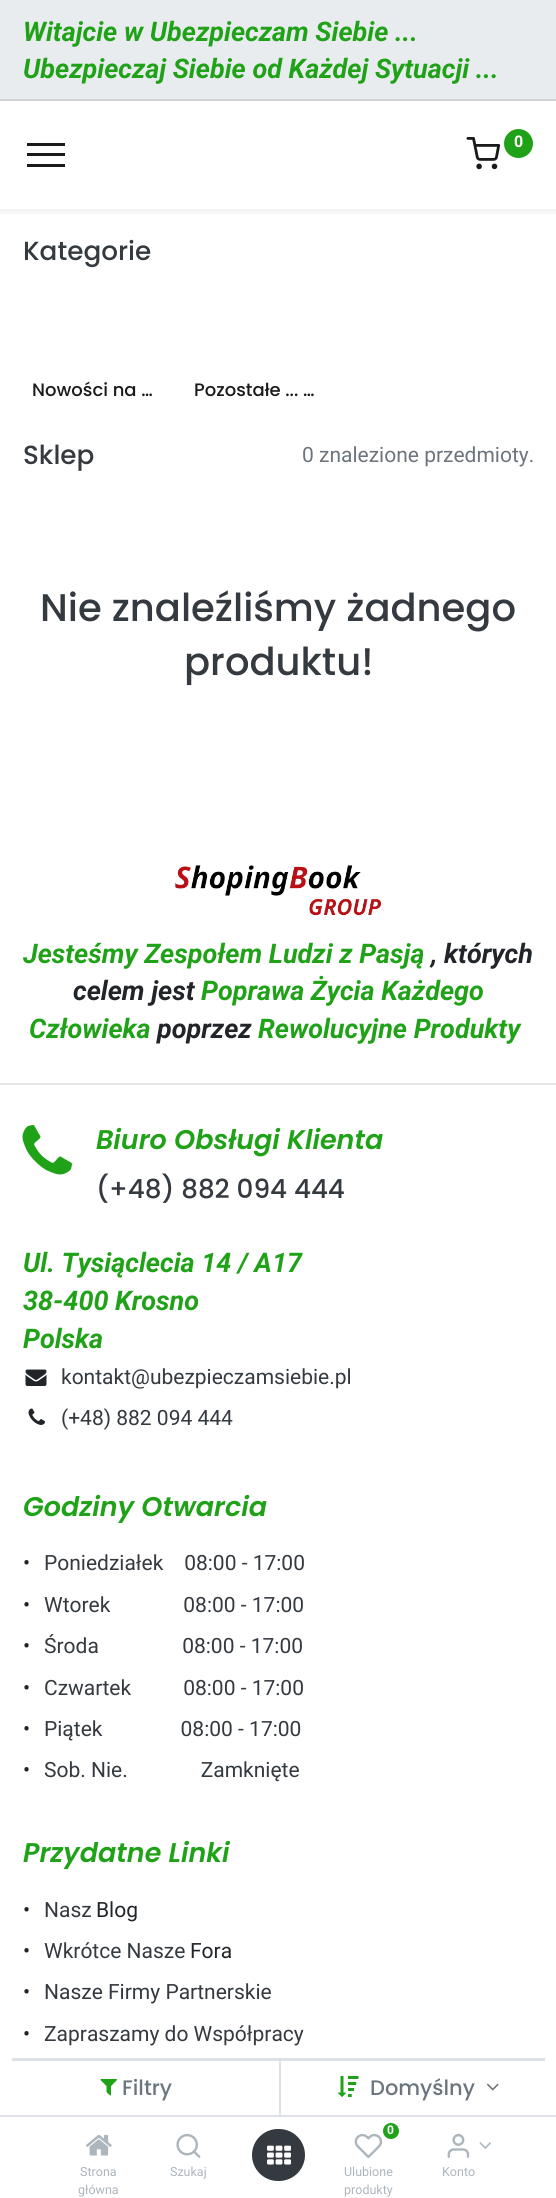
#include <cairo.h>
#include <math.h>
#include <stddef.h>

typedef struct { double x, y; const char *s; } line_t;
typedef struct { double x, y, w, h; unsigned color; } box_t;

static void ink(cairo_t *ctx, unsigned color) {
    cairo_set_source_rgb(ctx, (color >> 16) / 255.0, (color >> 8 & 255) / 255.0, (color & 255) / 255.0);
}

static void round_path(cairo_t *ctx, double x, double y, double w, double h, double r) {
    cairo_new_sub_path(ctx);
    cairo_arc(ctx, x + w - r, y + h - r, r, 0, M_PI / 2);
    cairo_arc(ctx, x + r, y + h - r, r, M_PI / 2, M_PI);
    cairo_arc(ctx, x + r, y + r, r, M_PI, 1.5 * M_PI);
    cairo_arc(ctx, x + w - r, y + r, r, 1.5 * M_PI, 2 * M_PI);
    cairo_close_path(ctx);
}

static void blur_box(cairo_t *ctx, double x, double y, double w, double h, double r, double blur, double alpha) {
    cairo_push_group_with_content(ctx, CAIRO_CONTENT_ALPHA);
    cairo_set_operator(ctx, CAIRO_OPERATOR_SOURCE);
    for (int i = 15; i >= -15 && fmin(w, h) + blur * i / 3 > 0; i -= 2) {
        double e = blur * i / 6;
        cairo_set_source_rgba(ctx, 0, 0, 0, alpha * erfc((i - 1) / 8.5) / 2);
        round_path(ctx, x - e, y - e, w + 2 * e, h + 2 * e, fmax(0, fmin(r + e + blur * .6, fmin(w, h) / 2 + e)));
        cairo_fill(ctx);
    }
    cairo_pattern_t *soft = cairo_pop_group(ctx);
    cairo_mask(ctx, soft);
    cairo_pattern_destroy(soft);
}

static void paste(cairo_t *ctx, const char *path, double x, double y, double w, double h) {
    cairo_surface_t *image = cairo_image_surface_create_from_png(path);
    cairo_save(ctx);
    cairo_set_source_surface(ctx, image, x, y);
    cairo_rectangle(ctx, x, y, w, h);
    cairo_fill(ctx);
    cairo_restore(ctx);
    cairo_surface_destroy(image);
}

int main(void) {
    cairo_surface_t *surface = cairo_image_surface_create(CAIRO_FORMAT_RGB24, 556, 2198);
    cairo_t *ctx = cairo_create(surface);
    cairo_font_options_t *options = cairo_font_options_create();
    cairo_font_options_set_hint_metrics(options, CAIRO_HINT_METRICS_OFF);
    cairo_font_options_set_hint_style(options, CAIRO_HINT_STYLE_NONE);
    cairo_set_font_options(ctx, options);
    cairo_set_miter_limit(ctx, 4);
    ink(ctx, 0xFFFFFF);
    cairo_paint(ctx);
    ink(ctx, 0xE9ECEF);
    cairo_rectangle(ctx, 0, 0, 556, 99);
    cairo_fill(ctx);
    ink(ctx, 0xD1D4D7);
    cairo_rectangle(ctx, 0, 99, 556, 2);
    cairo_fill(ctx);
    cairo_select_font_face(ctx, "Roboto", CAIRO_FONT_SLANT_ITALIC, CAIRO_FONT_WEIGHT_BOLD);
    cairo_set_font_size(ctx, 27);
    ink(ctx, 0x20A218);
    cairo_move_to(ctx, 23, 41);
    cairo_show_text(ctx, "Witajcie w Ubezpieczam Siebie ...");
    cairo_move_to(ctx, 23, 78);
    cairo_show_text(ctx, "Ubezpieczaj Siebie od Każdej Sytuacji ...");
    ink(ctx, 0x000000);
    blur_box(ctx, 0, 104, 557, 108, 0, 3, 0.07);
    ink(ctx, 0xFFFFFF);
    cairo_rectangle(ctx, 0, 101, 556, 108);
    cairo_fill(ctx);
    paste(ctx, "media/1.png", 466, 137, 35, 33);
    ink(ctx, 0x20A218);
    cairo_arc(ctx, 518.5, 143.5, 14.5, 0, 2 * M_PI);
    cairo_fill(ctx);
    cairo_select_font_face(ctx, "Roboto", CAIRO_FONT_SLANT_NORMAL, CAIRO_FONT_WEIGHT_BOLD);
    cairo_set_font_size(ctx, 16);
    ink(ctx, 0xFFFFFF);
    cairo_move_to(ctx, 514, 147);
    cairo_show_text(ctx, "0");
    {
        static const box_t items[] = {
            {27, 143, 38, 3, 0x1A1A1A},
            {27, 153, 38, 3, 0x1A1A1A},
            {27, 164, 38, 3, 0x1A1A1A},
        };
        for (size_t i = 0; i < sizeof items / sizeof *items; i++) {
            ink(ctx, items[i].color);
            cairo_rectangle(ctx, items[i].x, items[i].y, items[i].w, items[i].h);
            cairo_fill(ctx);
        }
    }
    cairo_select_font_face(ctx, "Poppins Medium", CAIRO_FONT_SLANT_NORMAL, CAIRO_FONT_WEIGHT_NORMAL);
    cairo_set_font_size(ctx, 26.25);
    ink(ctx, 0x343A40);
    cairo_move_to(ctx, 23, 260);
    cairo_show_text(ctx, "Kategorie");
    cairo_set_font_size(ctx, 18);
    ink(ctx, 0x1A1A1A);
    cairo_move_to(ctx, 32, 396);
    cairo_show_text(ctx, "Nowości na …");
    cairo_move_to(ctx, 194, 396);
    cairo_show_text(ctx, "Pozostałe ... …");
    cairo_set_font_size(ctx, 26.25);
    ink(ctx, 0x343A40);
    cairo_move_to(ctx, 23, 464);
    cairo_show_text(ctx, "Sklep");
    cairo_select_font_face(ctx, "Roboto", CAIRO_FONT_SLANT_NORMAL, CAIRO_FONT_WEIGHT_NORMAL);
    cairo_set_font_size(ctx, 21);
    ink(ctx, 0x6C757D);
    cairo_move_to(ctx, 302, 462);
    cairo_show_text(ctx, "0 znalezione przedmioty.");
    cairo_select_font_face(ctx, "Poppins Medium", CAIRO_FONT_SLANT_NORMAL, CAIRO_FONT_WEIGHT_NORMAL);
    cairo_set_font_size(ctx, 38.5);
    ink(ctx, 0x343A40);
    cairo_move_to(ctx, 40, 621);
    cairo_show_text(ctx, "Nie znaleźliśmy żadnego");
    cairo_move_to(ctx, 184, 675);
    cairo_show_text(ctx, "produktu!");
    ink(ctx, 0xE4E5E5);
    cairo_rectangle(ctx, 0, 1083, 556, 2);
    cairo_fill(ctx);
    paste(ctx, "media/2.png", 175, 865, 207, 51);
    cairo_select_font_face(ctx, "Roboto", CAIRO_FONT_SLANT_ITALIC, CAIRO_FONT_WEIGHT_BOLD);
    cairo_set_font_size(ctx, 27);
    ink(ctx, 0x20A218);
    cairo_move_to(ctx, 23, 963);
    cairo_show_text(ctx, "Jesteśmy Zespołem Ludzi z Pasją");
    ink(ctx, 0x212529);
    cairo_move_to(ctx, 431, 963);
    cairo_show_text(ctx, ", których");
    cairo_move_to(ctx, 73, 1000);
    cairo_show_text(ctx, "celem jest");
    ink(ctx, 0x20A218);
    cairo_move_to(ctx, 201, 1000);
    cairo_show_text(ctx, "Poprawa Życia Każdego");
    cairo_move_to(ctx, 29, 1038);
    cairo_show_text(ctx, "Człowieka");
    ink(ctx, 0x212529);
    cairo_move_to(ctx, 157, 1038);
    cairo_show_text(ctx, "poprzez");
    ink(ctx, 0x20A218);
    cairo_move_to(ctx, 258, 1038);
    cairo_show_text(ctx, "Rewolucyjne Produkty");
    paste(ctx, "media/3.png", 22, 1125, 50, 50);
    cairo_select_font_face(ctx, "Poppins SemiBold", CAIRO_FONT_SLANT_ITALIC, CAIRO_FONT_WEIGHT_NORMAL);
    cairo_move_to(ctx, 96, 1149);
    cairo_show_text(ctx, "Biuro Obsługi Klienta");
    cairo_select_font_face(ctx, "Poppins Medium", CAIRO_FONT_SLANT_NORMAL, CAIRO_FONT_WEIGHT_NORMAL);
    cairo_set_font_size(ctx, 26.25);
    ink(ctx, 0x343A40);
    cairo_move_to(ctx, 96, 1198);
    cairo_show_text(ctx, "(+48) 882 094 444");
    cairo_select_font_face(ctx, "Roboto", CAIRO_FONT_SLANT_ITALIC, CAIRO_FONT_WEIGHT_BOLD);
    cairo_set_font_size(ctx, 27);
    ink(ctx, 0x20A218);
    {
        static const line_t items[] = {
            {23, 1272, "Ul. Tysiąclecia 14 / A17"},
            {23, 1310, "38-400 Krosno"},
            {23, 1348, "Polska"},
        };
        for (size_t i = 0; i < sizeof items / sizeof *items; i++) {
            cairo_move_to(ctx, items[i].x, items[i].y);
            cairo_show_text(ctx, items[i].s);
        }
    }
    paste(ctx, "media/4.png", 25, 1369, 22, 17);
    cairo_select_font_face(ctx, "Roboto", CAIRO_FONT_SLANT_NORMAL, CAIRO_FONT_WEIGHT_NORMAL);
    cairo_set_font_size(ctx, 21);
    ink(ctx, 0x343A40);
    cairo_move_to(ctx, 61, 1384);
    cairo_show_text(ctx, "kontakt@ubezpieczamsiebie.pl");
    paste(ctx, "media/5.png", 28, 1408, 17, 17);
    cairo_move_to(ctx, 61, 1425);
    cairo_show_text(ctx, "(+48) 882 094 444");
    cairo_select_font_face(ctx, "Poppins SemiBold", CAIRO_FONT_SLANT_ITALIC, CAIRO_FONT_WEIGHT_NORMAL);
    cairo_set_font_size(ctx, 27);
    ink(ctx, 0x20A218);
    cairo_move_to(ctx, 23, 1516);
    cairo_show_text(ctx, "Godziny Otwarcia");
    cairo_select_font_face(ctx, "Roboto", CAIRO_FONT_SLANT_NORMAL, CAIRO_FONT_WEIGHT_NORMAL);
    cairo_set_font_size(ctx, 21);
    ink(ctx, 0x212529);
    cairo_move_to(ctx, 23, 1570);
    cairo_show_text(ctx, "•");
    ink(ctx, 0x343A40);
    cairo_move_to(ctx, 44, 1570);
    cairo_show_text(ctx, "Poniedziałek    08:00 - 17:00");
    ink(ctx, 0x212529);
    cairo_move_to(ctx, 23, 1612);
    cairo_show_text(ctx, "•");
    ink(ctx, 0x343A40);
    cairo_move_to(ctx, 44, 1612);
    cairo_show_text(ctx, "Wtorek              08:00 - 17:00");
    ink(ctx, 0x212529);
    cairo_move_to(ctx, 23, 1653);
    cairo_show_text(ctx, "•");
    ink(ctx, 0x343A40);
    cairo_move_to(ctx, 44, 1653);
    cairo_show_text(ctx, "Środa                08:00 - 17:00");
    ink(ctx, 0x212529);
    cairo_move_to(ctx, 23, 1695);
    cairo_show_text(ctx, "•");
    ink(ctx, 0x343A40);
    cairo_move_to(ctx, 44, 1695);
    cairo_show_text(ctx, "Czwartek          08:00 - 17:00");
    ink(ctx, 0x212529);
    cairo_move_to(ctx, 23, 1736);
    cairo_show_text(ctx, "•");
    ink(ctx, 0x343A40);
    cairo_move_to(ctx, 44, 1736);
    cairo_show_text(ctx, "Piątek               08:00 - 17:00");
    ink(ctx, 0x212529);
    cairo_move_to(ctx, 23, 1777);
    cairo_show_text(ctx, "•");
    ink(ctx, 0x343A40);
    cairo_move_to(ctx, 44, 1777);
    cairo_show_text(ctx, "Sob. Nie.              Zamknięte");
    cairo_select_font_face(ctx, "Poppins SemiBold", CAIRO_FONT_SLANT_ITALIC, CAIRO_FONT_WEIGHT_NORMAL);
    cairo_set_font_size(ctx, 27);
    ink(ctx, 0x20A218);
    cairo_move_to(ctx, 23, 1862);
    cairo_show_text(ctx, "Przydatne Linki");
    cairo_select_font_face(ctx, "Roboto", CAIRO_FONT_SLANT_NORMAL, CAIRO_FONT_WEIGHT_NORMAL);
    cairo_set_font_size(ctx, 21);
    ink(ctx, 0x212529);
    cairo_move_to(ctx, 23, 1917);
    cairo_show_text(ctx, "•");
    ink(ctx, 0x343A40);
    cairo_move_to(ctx, 44, 1917);
    cairo_show_text(ctx, "Nasz");
    ink(ctx, 0x212529);
    cairo_move_to(ctx, 96, 1917);
    cairo_show_text(ctx, "Blog");
    cairo_move_to(ctx, 23, 1958);
    cairo_show_text(ctx, "•");
    ink(ctx, 0x343A40);
    cairo_move_to(ctx, 44, 1958);
    cairo_show_text(ctx, "Wkrótce Nasze");
    ink(ctx, 0x212529);
    cairo_move_to(ctx, 190, 1958);
    cairo_show_text(ctx, "Fora");
    cairo_move_to(ctx, 23, 1999);
    cairo_show_text(ctx, "•");
    ink(ctx, 0x343A40);
    cairo_move_to(ctx, 44, 1999);
    cairo_show_text(ctx, "Nasze Firmy Partnerskie");
    ink(ctx, 0x212529);
    cairo_move_to(ctx, 23, 2041);
    cairo_show_text(ctx, "•");
    ink(ctx, 0x343A40);
    cairo_move_to(ctx, 44, 2041);
    cairo_show_text(ctx, "Zapraszamy do Współpracy");
    ink(ctx, 0xDEE2E6);
    cairo_rectangle(ctx, 12, 2058, 533, 3);
    cairo_fill(ctx);
    cairo_rectangle(ctx, 0, 2115, 556, 2);
    cairo_fill(ctx);
    paste(ctx, "media/6.png", 100, 2079, 17, 17);
    cairo_select_font_face(ctx, "Poppins Medium", CAIRO_FONT_SLANT_NORMAL, CAIRO_FONT_WEIGHT_NORMAL);
    ink(ctx, 0x6C757D);
    cairo_move_to(ctx, 122, 2095);
    cairo_show_text(ctx, "Filtry");
    ink(ctx, 0xDEE2E6);
    cairo_rectangle(ctx, 279, 2061, 2, 54);
    cairo_fill(ctx);
    paste(ctx, "media/7.png", 337, 2076, 22, 21);
    ink(ctx, 0x6C757D);
    cairo_move_to(ctx, 370, 2095);
    cairo_show_text(ctx, "Domyślny");
    paste(ctx, "media/8.png", 487, 2083, 12, 8);
    paste(ctx, "media/9.png", 86, 2134, 26, 22);
    cairo_select_font_face(ctx, "Roboto", CAIRO_FONT_SLANT_NORMAL, CAIRO_FONT_WEIGHT_NORMAL);
    cairo_set_font_size(ctx, 12.5);
    ink(ctx, 0xADB5BD);
    cairo_move_to(ctx, 80, 2176);
    cairo_show_text(ctx, "Strona");
    cairo_move_to(ctx, 78, 2194);
    cairo_show_text(ctx, "główna");
    paste(ctx, "media/10.png", 176, 2133, 25, 25);
    cairo_move_to(ctx, 170, 2176);
    cairo_show_text(ctx, "Szukaj");
    ink(ctx, 0x343A40);
    round_path(ctx, 252, 2129, 53, 52, 26);
    cairo_fill(ctx);
    paste(ctx, "media/11.png", 267, 2145, 24, 20);
    ink(ctx, 0x20A218);
    cairo_arc(ctx, 391, 2131, 8, 0, 2 * M_PI);
    cairo_fill(ctx);
    cairo_select_font_face(ctx, "Roboto", CAIRO_FONT_SLANT_NORMAL, CAIRO_FONT_WEIGHT_BOLD);
    cairo_set_font_size(ctx, 12);
    ink(ctx, 0xFFFFFF);
    cairo_move_to(ctx, 387, 2134);
    cairo_show_text(ctx, "0");
    paste(ctx, "media/12.png", 354, 2133, 29, 26);
    cairo_select_font_face(ctx, "Roboto", CAIRO_FONT_SLANT_NORMAL, CAIRO_FONT_WEIGHT_NORMAL);
    cairo_set_font_size(ctx, 12.5);
    ink(ctx, 0xADB5BD);
    cairo_move_to(ctx, 344, 2176);
    cairo_show_text(ctx, "Ulubione");
    cairo_move_to(ctx, 344, 2194);
    cairo_show_text(ctx, "produkty");
    paste(ctx, "media/13.png", 447, 2133, 23, 25);
    paste(ctx, "media/14.png", 479, 2142, 12, 7);
    cairo_move_to(ctx, 442, 2176);
    cairo_show_text(ctx, "Konto");
    cairo_surface_write_to_png(surface, "image.png");
    cairo_font_options_destroy(options);
    cairo_destroy(ctx);
    cairo_surface_destroy(surface);
    return 0;
}
